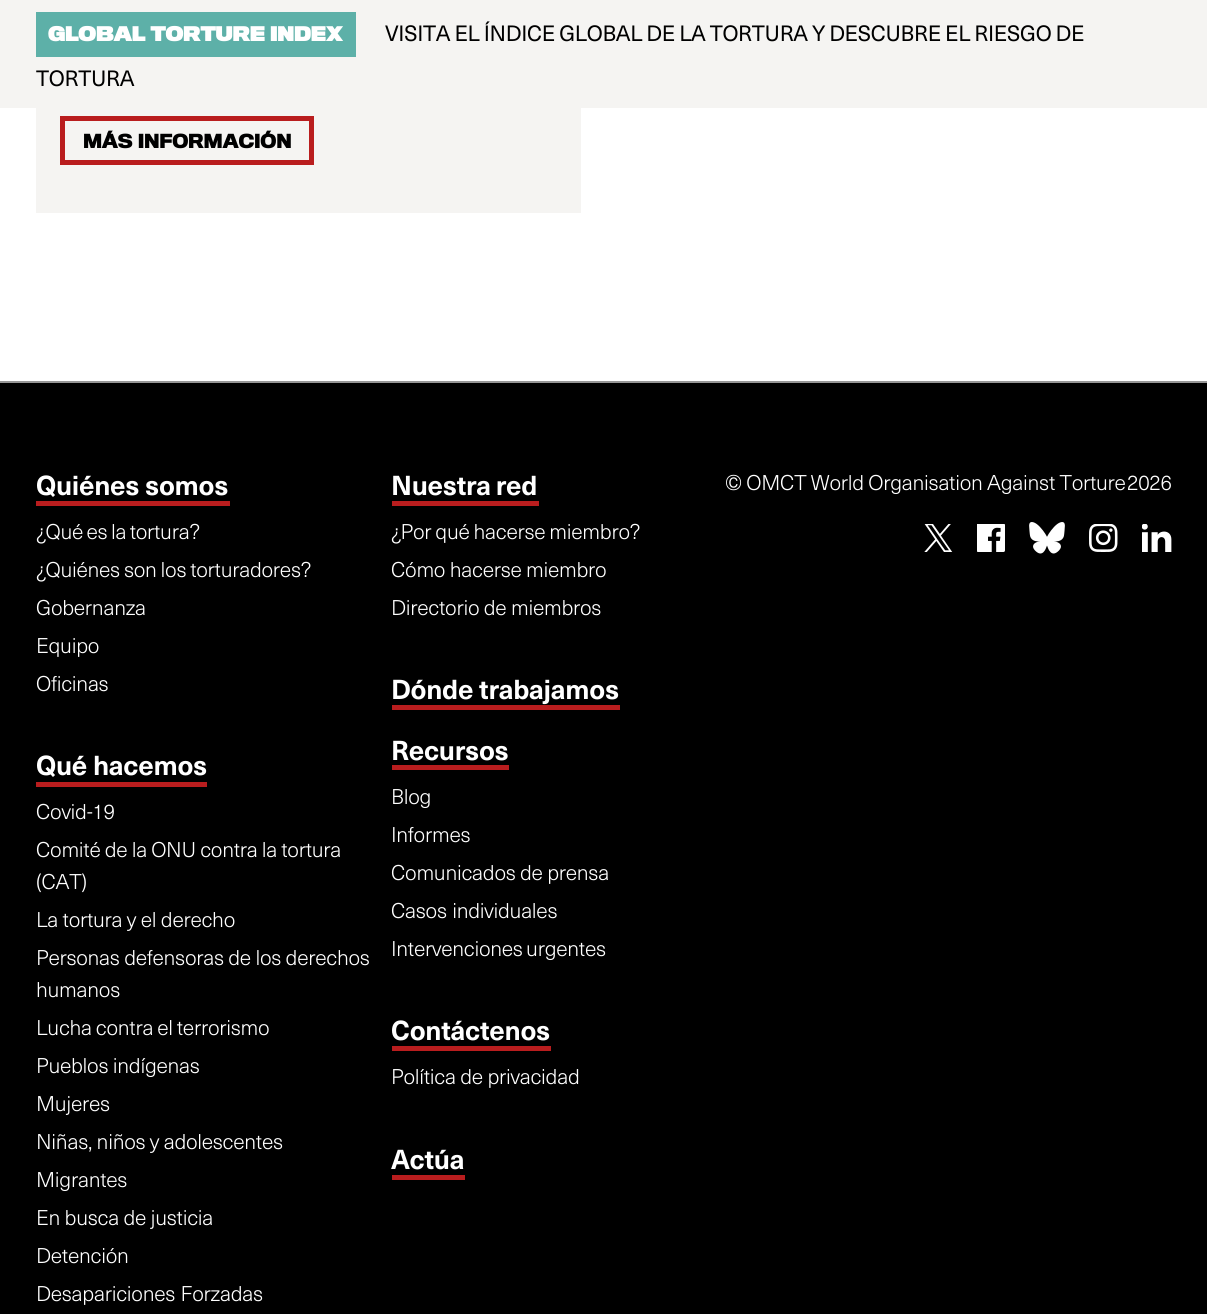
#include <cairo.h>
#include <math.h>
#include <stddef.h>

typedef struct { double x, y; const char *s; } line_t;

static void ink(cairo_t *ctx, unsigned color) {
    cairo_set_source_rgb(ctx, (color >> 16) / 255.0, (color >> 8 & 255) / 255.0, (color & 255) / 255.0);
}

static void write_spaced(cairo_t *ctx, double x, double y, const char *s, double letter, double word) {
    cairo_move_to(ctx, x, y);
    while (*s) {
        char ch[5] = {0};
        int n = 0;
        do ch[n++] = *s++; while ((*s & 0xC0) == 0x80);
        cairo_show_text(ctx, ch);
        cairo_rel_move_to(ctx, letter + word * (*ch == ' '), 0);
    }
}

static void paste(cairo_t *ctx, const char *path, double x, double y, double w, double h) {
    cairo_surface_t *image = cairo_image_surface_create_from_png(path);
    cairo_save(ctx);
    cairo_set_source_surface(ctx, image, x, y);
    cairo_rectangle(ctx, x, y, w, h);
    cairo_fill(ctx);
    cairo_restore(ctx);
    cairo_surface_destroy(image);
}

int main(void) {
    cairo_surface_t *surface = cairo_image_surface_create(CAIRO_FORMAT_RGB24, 1207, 1314);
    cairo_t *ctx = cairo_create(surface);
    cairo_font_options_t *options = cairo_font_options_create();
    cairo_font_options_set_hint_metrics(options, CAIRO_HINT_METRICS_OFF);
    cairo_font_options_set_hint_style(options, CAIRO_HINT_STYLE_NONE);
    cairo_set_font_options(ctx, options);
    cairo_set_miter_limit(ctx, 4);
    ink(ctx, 0xFFFFFF);
    cairo_paint(ctx);
    ink(ctx, 0xF5F4F2);
    cairo_rectangle(ctx, 0, 0, 1207, 108);
    cairo_fill(ctx);
    ink(ctx, 0x5DB0A8);
    cairo_rectangle(ctx, 36, 12, 320, 45);
    cairo_fill(ctx);
    cairo_select_font_face(ctx, "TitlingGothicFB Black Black", CAIRO_FONT_SLANT_NORMAL, CAIRO_FONT_WEIGHT_NORMAL);
    cairo_set_font_size(ctx, 18.75);
    ink(ctx, 0xFFFFFF);
    write_spaced(ctx, 48, 41, "GLOBAL TORTURE INDEX", -0.4, 0);
    cairo_select_font_face(ctx, "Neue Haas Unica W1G", CAIRO_FONT_SLANT_NORMAL, CAIRO_FONT_WEIGHT_NORMAL);
    cairo_set_font_size(ctx, 21.8);
    ink(ctx, 0x000000);
    write_spaced(ctx, 385, 41, "VISITA EL ÍNDICE GLOBAL DE LA TORTURA Y DESCUBRE EL RIESGO DE", -0.28, -0.6);
    write_spaced(ctx, 36, 86, "TORTURA", -0.28, 0);
    ink(ctx, 0xF5F4F2);
    cairo_rectangle(ctx, 36, 108, 545, 105);
    cairo_fill(ctx);
    cairo_rectangle(ctx, 62.5, 118.5, 249, 44);
    ink(ctx, 0xB91D1E);
    cairo_set_line_width(ctx, 5);
    cairo_stroke(ctx);
    cairo_select_font_face(ctx, "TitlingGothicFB", CAIRO_FONT_SLANT_NORMAL, CAIRO_FONT_WEIGHT_BOLD);
    cairo_set_font_size(ctx, 18);
    ink(ctx, 0x000000);
    write_spaced(ctx, 83, 148, "MÁS INFORMACIÓN", -0.28, 0);
    cairo_rectangle(ctx, 0, 383, 1207, 931);
    cairo_fill(ctx);
    ink(ctx, 0x979797);
    cairo_rectangle(ctx, 0, 381, 1207, 2);
    cairo_fill(ctx);
    cairo_select_font_face(ctx, "Neue Haas Unica W1G", CAIRO_FONT_SLANT_NORMAL, CAIRO_FONT_WEIGHT_BOLD);
    cairo_set_font_size(ctx, 27);
    ink(ctx, 0xFFFFFF);
    write_spaced(ctx, 36, 495, "Quiénes somos", -0.28, 0);
    ink(ctx, 0xB91D1E);
    cairo_rectangle(ctx, 36, 501, 194, 5);
    cairo_fill(ctx);
    cairo_select_font_face(ctx, "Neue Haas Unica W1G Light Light", CAIRO_FONT_SLANT_NORMAL, CAIRO_FONT_WEIGHT_NORMAL);
    cairo_set_font_size(ctx, 21);
    ink(ctx, 0xFFFFFF);
    write_spaced(ctx, 36, 539, "¿Qué es la tortura?", -0.28, -1);
    write_spaced(ctx, 36, 577, "¿Quiénes son los torturadores?", -0.28, -0.5);
    {
        static const line_t items[] = {
            {36, 615, "Gobernanza"},
            {36, 653, "Equipo"},
            {36, 691, "Oficinas"},
        };
        for (size_t i = 0; i < sizeof items / sizeof *items; i++) {
            write_spaced(ctx, items[i].x, items[i].y, items[i].s, -0.28, 0);
        }
    }
    cairo_select_font_face(ctx, "Neue Haas Unica W1G", CAIRO_FONT_SLANT_NORMAL, CAIRO_FONT_WEIGHT_BOLD);
    cairo_set_font_size(ctx, 27);
    write_spaced(ctx, 391, 495, "Nuestra red", -0.28, -1);
    ink(ctx, 0xB91D1E);
    cairo_rectangle(ctx, 392, 501, 147, 5);
    cairo_fill(ctx);
    cairo_select_font_face(ctx, "Neue Haas Unica W1G Light Light", CAIRO_FONT_SLANT_NORMAL, CAIRO_FONT_WEIGHT_NORMAL);
    cairo_set_font_size(ctx, 21);
    ink(ctx, 0xFFFFFF);
    write_spaced(ctx, 391, 539, "¿Por qué hacerse miembro?", -0.28, -0.5);
    write_spaced(ctx, 391, 577, "Cómo hacerse miembro", -0.28, 0);
    write_spaced(ctx, 391, 615, "Directorio de miembros", -0.28, 0);
    cairo_select_font_face(ctx, "Neue Haas Unica W1G", CAIRO_FONT_SLANT_NORMAL, CAIRO_FONT_WEIGHT_BOLD);
    cairo_set_font_size(ctx, 27);
    write_spaced(ctx, 391, 699, "Dónde trabajamos", -0.28, 0);
    ink(ctx, 0xB91D1E);
    cairo_rectangle(ctx, 392, 705, 228, 5);
    cairo_fill(ctx);
    ink(ctx, 0xFFFFFF);
    write_spaced(ctx, 36, 775, "Qué hacemos", -0.28, 0);
    ink(ctx, 0xB91D1E);
    cairo_rectangle(ctx, 36, 782, 171, 5);
    cairo_fill(ctx);
    cairo_select_font_face(ctx, "Neue Haas Unica W1G Light Light", CAIRO_FONT_SLANT_NORMAL, CAIRO_FONT_WEIGHT_NORMAL);
    cairo_set_font_size(ctx, 21);
    ink(ctx, 0xFFFFFF);
    write_spaced(ctx, 36, 819, "Covid-19", -0.28, 0);
    write_spaced(ctx, 36, 857, "Comité de la ONU contra la tortura", -0.28, -0.25);
    {
        static const line_t items[] = {
            {36, 889, "(CAT)"},
            {36, 927, "La tortura y el derecho"},
            {36, 965, "Personas defensoras de los derechos"},
            {36, 997, "humanos"},
        };
        for (size_t i = 0; i < sizeof items / sizeof *items; i++) {
            write_spaced(ctx, items[i].x, items[i].y, items[i].s, -0.28, 0);
        }
    }
    write_spaced(ctx, 36, 1035, "Lucha contra el terrorismo", -0.28, -0.5);
    {
        static const line_t items[] = {
            {36, 1073, "Pueblos indígenas"},
            {36, 1111, "Mujeres"},
            {36, 1149, "Niñas, niños y adolescentes"},
            {36, 1187, "Migrantes"},
            {36, 1225, "En busca de justicia"},
            {36, 1263, "Detención"},
        };
        for (size_t i = 0; i < sizeof items / sizeof *items; i++) {
            write_spaced(ctx, items[i].x, items[i].y, items[i].s, -0.28, 0);
        }
    }
    write_spaced(ctx, 36, 1301, "Desapariciones Forzadas", -0.28, 1);
    cairo_select_font_face(ctx, "Neue Haas Unica W1G", CAIRO_FONT_SLANT_NORMAL, CAIRO_FONT_WEIGHT_BOLD);
    cairo_set_font_size(ctx, 27);
    write_spaced(ctx, 391, 760, "Recursos", -0.28, 0);
    ink(ctx, 0xB91D1E);
    cairo_rectangle(ctx, 392, 765, 117, 5);
    cairo_fill(ctx);
    cairo_select_font_face(ctx, "Neue Haas Unica W1G Light Light", CAIRO_FONT_SLANT_NORMAL, CAIRO_FONT_WEIGHT_NORMAL);
    cairo_set_font_size(ctx, 21);
    ink(ctx, 0xFFFFFF);
    {
        static const line_t items[] = {
            {391, 804, "Blog"},
            {391, 842, "Informes"},
            {391, 880, "Comunicados de prensa"},
        };
        for (size_t i = 0; i < sizeof items / sizeof *items; i++) {
            write_spaced(ctx, items[i].x, items[i].y, items[i].s, -0.28, 0);
        }
    }
    write_spaced(ctx, 391, 918, "Casos individuales", -0.28, 1);
    write_spaced(ctx, 391, 956, "Intervenciones urgentes", -0.28, -1);
    cairo_select_font_face(ctx, "Neue Haas Unica W1G", CAIRO_FONT_SLANT_NORMAL, CAIRO_FONT_WEIGHT_BOLD);
    cairo_set_font_size(ctx, 27);
    write_spaced(ctx, 391, 1040, "Contáctenos", -0.28, 0);
    ink(ctx, 0xB91D1E);
    cairo_rectangle(ctx, 392, 1046, 159, 5);
    cairo_fill(ctx);
    cairo_select_font_face(ctx, "Neue Haas Unica W1G Light Light", CAIRO_FONT_SLANT_NORMAL, CAIRO_FONT_WEIGHT_NORMAL);
    cairo_set_font_size(ctx, 21);
    ink(ctx, 0xFFFFFF);
    write_spaced(ctx, 391, 1084, "Política de privacidad", -0.28, 0);
    cairo_select_font_face(ctx, "Neue Haas Unica W1G", CAIRO_FONT_SLANT_NORMAL, CAIRO_FONT_WEIGHT_BOLD);
    cairo_set_font_size(ctx, 27);
    write_spaced(ctx, 391, 1169, "Actúa", -0.28, 0);
    ink(ctx, 0xB91D1E);
    cairo_rectangle(ctx, 392, 1175, 73, 5);
    cairo_fill(ctx);
    cairo_select_font_face(ctx, "Neue Haas Unica W1G Light Light", CAIRO_FONT_SLANT_NORMAL, CAIRO_FONT_WEIGHT_NORMAL);
    cairo_set_font_size(ctx, 21);
    ink(ctx, 0xFFFFFF);
    write_spaced(ctx, 725, 490, "© OMCT World Organisation Against Torture", -0.28, 0);
    write_spaced(ctx, 1127, 490, "2026", -0.28, 0);
    paste(ctx, "media/1.png", 924, 524, 29, 28);
    paste(ctx, "media/2.png", 977, 524, 28, 28);
    paste(ctx, "media/3.png", 1029, 522, 36, 32);
    paste(ctx, "media/4.png", 1089, 524, 29, 28);
    paste(ctx, "media/5.png", 1142, 524, 30, 28);
    cairo_surface_write_to_png(surface, "image.png");
    cairo_font_options_destroy(options);
    cairo_destroy(ctx);
    cairo_surface_destroy(surface);
    return 0;
}
